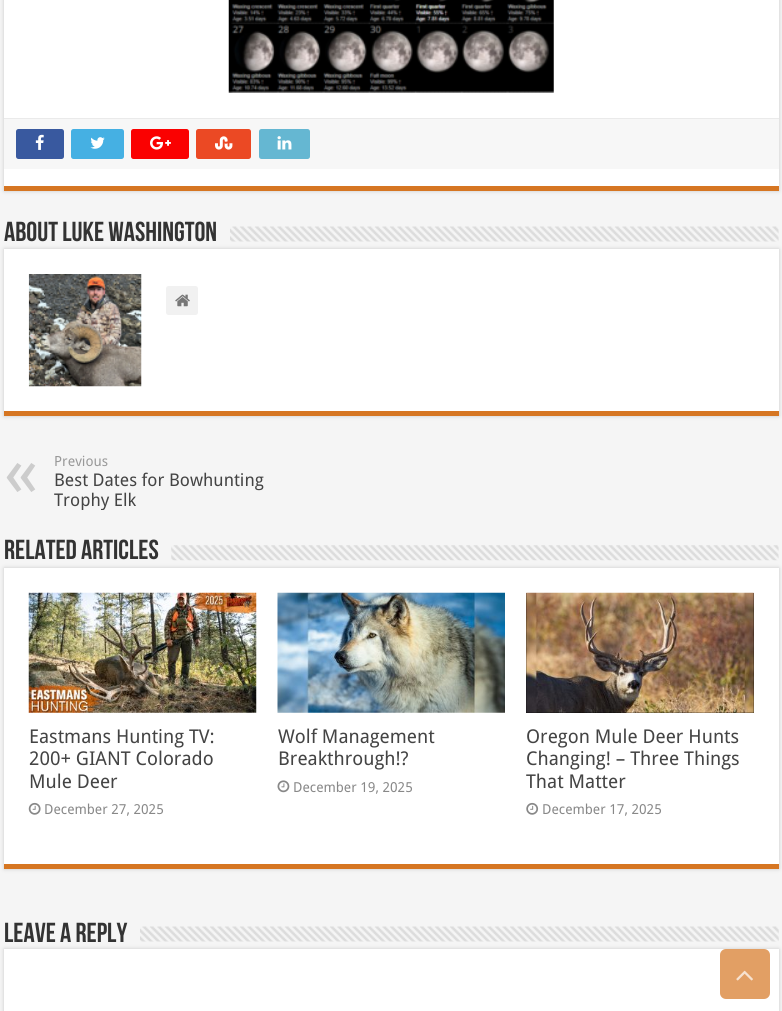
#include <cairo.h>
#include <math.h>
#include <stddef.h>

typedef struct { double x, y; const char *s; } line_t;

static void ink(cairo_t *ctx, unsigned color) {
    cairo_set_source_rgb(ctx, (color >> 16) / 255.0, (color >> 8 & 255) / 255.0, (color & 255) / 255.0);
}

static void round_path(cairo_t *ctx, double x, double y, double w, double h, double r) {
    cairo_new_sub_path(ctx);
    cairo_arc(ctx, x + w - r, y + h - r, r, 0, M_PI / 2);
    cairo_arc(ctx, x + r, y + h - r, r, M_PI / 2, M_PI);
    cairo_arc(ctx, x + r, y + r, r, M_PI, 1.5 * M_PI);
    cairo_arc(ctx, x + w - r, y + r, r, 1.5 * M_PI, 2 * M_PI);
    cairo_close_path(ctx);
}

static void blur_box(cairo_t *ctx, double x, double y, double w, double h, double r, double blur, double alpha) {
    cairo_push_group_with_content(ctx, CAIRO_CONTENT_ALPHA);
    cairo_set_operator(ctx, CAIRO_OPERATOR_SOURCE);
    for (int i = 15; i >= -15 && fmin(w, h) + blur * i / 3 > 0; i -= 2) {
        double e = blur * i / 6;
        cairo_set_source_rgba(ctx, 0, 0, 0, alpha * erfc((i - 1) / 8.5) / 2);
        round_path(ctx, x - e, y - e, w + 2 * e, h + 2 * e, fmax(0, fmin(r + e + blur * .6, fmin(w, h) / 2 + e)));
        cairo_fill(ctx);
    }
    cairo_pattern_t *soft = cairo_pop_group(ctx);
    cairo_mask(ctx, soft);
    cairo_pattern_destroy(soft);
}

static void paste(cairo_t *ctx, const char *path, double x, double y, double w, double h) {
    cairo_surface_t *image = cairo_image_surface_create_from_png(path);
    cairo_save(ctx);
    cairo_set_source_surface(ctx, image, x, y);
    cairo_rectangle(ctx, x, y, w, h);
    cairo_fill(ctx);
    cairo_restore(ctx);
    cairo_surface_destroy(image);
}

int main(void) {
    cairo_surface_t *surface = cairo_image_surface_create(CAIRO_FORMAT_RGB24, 782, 1011);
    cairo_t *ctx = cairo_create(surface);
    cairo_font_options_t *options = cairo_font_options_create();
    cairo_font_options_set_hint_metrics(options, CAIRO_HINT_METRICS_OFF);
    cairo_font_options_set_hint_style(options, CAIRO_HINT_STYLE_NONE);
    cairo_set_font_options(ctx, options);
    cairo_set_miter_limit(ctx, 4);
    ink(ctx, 0xF5F5F5);
    cairo_paint(ctx);
    ink(ctx, 0xCACACA);
    blur_box(ctx, 4, -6, 775, 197, 0, 2, 1);
    ink(ctx, 0xFFFFFF);
    cairo_rectangle(ctx, 4, 0, 775, 186);
    cairo_fill(ctx);
    ink(ctx, 0xD67622);
    cairo_rectangle(ctx, 4, 186, 775, 5);
    cairo_fill(ctx);
    paste(ctx, "media/1.png", 228, 0, 326, 93);
    ink(ctx, 0xF7F7F7);
    cairo_rectangle(ctx, 4, 119, 775, 50);
    cairo_fill(ctx);
    ink(ctx, 0xEAEAEA);
    cairo_rectangle(ctx, 4, 118, 775, 1);
    cairo_fill(ctx);
    ink(ctx, 0x39599F);
    round_path(ctx, 16, 129, 48, 30, 2.5);
    cairo_fill(ctx);
    paste(ctx, "media/2.png", 35, 134, 9, 16);
    ink(ctx, 0x45B0E3);
    round_path(ctx, 71, 129, 53, 30, 2.5);
    cairo_fill(ctx);
    paste(ctx, "media/3.png", 90, 137, 15, 12);
    ink(ctx, 0xFA0101);
    round_path(ctx, 131, 129, 58, 30, 2.5);
    cairo_fill(ctx);
    paste(ctx, "media/4.png", 150, 136, 21, 14);
    ink(ctx, 0xEB4924);
    round_path(ctx, 196, 129, 55, 30, 2.5);
    cairo_fill(ctx);
    paste(ctx, "media/5.png", 215, 136, 18, 14);
    ink(ctx, 0x65B7D2);
    round_path(ctx, 259, 129, 51, 30, 2.5);
    cairo_fill(ctx);
    paste(ctx, "media/6.png", 277, 136, 15, 14);
    cairo_select_font_face(ctx, "Bebas Neue", CAIRO_FONT_SLANT_NORMAL, CAIRO_FONT_WEIGHT_BOLD);
    cairo_set_font_size(ctx, 27.5);
    ink(ctx, 0x333333);
    cairo_move_to(ctx, 4, 241);
    cairo_show_text(ctx, "About Luke Washington");
    paste(ctx, "media/7.png", 230, 226, 549, 16);
    ink(ctx, 0xCACACA);
    blur_box(ctx, 4, 249, 775, 167, 0, 2, 1);
    ink(ctx, 0xFFFFFF);
    cairo_rectangle(ctx, 4, 249, 775, 162);
    cairo_fill(ctx);
    ink(ctx, 0xD67622);
    cairo_rectangle(ctx, 4, 411, 775, 5);
    cairo_fill(ctx);
    paste(ctx, "media/8.png", 28, 274, 114, 113);
    ink(ctx, 0xF1F1F1);
    round_path(ctx, 166, 286, 32, 29, 2.5);
    cairo_fill(ctx);
    paste(ctx, "media/9.png", 175, 294, 15, 13);
    cairo_select_font_face(ctx, "Droid Sans", CAIRO_FONT_SLANT_NORMAL, CAIRO_FONT_WEIGHT_NORMAL);
    cairo_set_font_size(ctx, 70);
    ink(ctx, 0xCCCCCC);
    cairo_move_to(ctx, 4, 496);
    cairo_show_text(ctx, "«");
    cairo_set_font_size(ctx, 14);
    ink(ctx, 0x999999);
    cairo_move_to(ctx, 54, 466);
    cairo_show_text(ctx, "Previous");
    cairo_set_font_size(ctx, 17.5);
    ink(ctx, 0x444444);
    cairo_move_to(ctx, 54, 486);
    cairo_show_text(ctx, "Best Dates for Bowhunting");
    cairo_save(ctx);
    cairo_rectangle(ctx, 4, 454, 775, 56);
    cairo_clip(ctx);
    cairo_move_to(ctx, 54, 506);
    cairo_show_text(ctx, "Trophy Elk");
    cairo_restore(ctx);
    cairo_select_font_face(ctx, "Bebas Neue", CAIRO_FONT_SLANT_NORMAL, CAIRO_FONT_WEIGHT_BOLD);
    cairo_set_font_size(ctx, 27.5);
    ink(ctx, 0x333333);
    cairo_move_to(ctx, 4, 559);
    cairo_show_text(ctx, "Related Articles");
    paste(ctx, "media/10.png", 171, 545, 608, 16);
    ink(ctx, 0xCACACA);
    blur_box(ctx, 4, 568, 775, 301, 0, 2, 1);
    ink(ctx, 0xFFFFFF);
    cairo_rectangle(ctx, 4, 568, 775, 296);
    cairo_fill(ctx);
    ink(ctx, 0xD67622);
    cairo_rectangle(ctx, 4, 864, 775, 5);
    cairo_fill(ctx);
    paste(ctx, "media/11.png", 28, 592, 229, 121);
    cairo_select_font_face(ctx, "Droid Sans", CAIRO_FONT_SLANT_NORMAL, CAIRO_FONT_WEIGHT_NORMAL);
    cairo_set_font_size(ctx, 19);
    ink(ctx, 0x444444);
    {
        static const line_t items[] = {
            {29, 743, "Eastmans Hunting TV:"},
            {29, 765, "200+ GIANT Colorado"},
            {29, 788, "Mule Deer"},
        };
        for (size_t i = 0; i < sizeof items / sizeof *items; i++) {
            cairo_move_to(ctx, items[i].x, items[i].y);
            cairo_show_text(ctx, items[i].s);
        }
    }
    paste(ctx, "media/12.png", 28, 802, 13, 13);
    cairo_set_font_size(ctx, 13.75);
    ink(ctx, 0x888888);
    cairo_move_to(ctx, 44, 814);
    cairo_show_text(ctx, "December 27, 2025");
    paste(ctx, "media/13.png", 277, 592, 228, 121);
    cairo_set_font_size(ctx, 19);
    ink(ctx, 0x444444);
    cairo_move_to(ctx, 278, 743);
    cairo_show_text(ctx, "Wolf Management");
    cairo_move_to(ctx, 278, 765);
    cairo_show_text(ctx, "Breakthrough!?");
    paste(ctx, "media/14.png", 277, 780, 13, 13);
    cairo_set_font_size(ctx, 13.75);
    ink(ctx, 0x888888);
    cairo_move_to(ctx, 293, 792);
    cairo_show_text(ctx, "December 19, 2025");
    ink(ctx, 0x000000);
    cairo_rectangle(ctx, 526, 593, 228, 120);
    cairo_fill(ctx);
    paste(ctx, "media/15.png", 526, 592, 228, 121);
    cairo_set_font_size(ctx, 19);
    ink(ctx, 0x444444);
    {
        static const line_t items[] = {
            {526, 743, "Oregon Mule Deer Hunts"},
            {526, 765, "Changing! – Three Things"},
            {526, 788, "That Matter"},
        };
        for (size_t i = 0; i < sizeof items / sizeof *items; i++) {
            cairo_move_to(ctx, items[i].x, items[i].y);
            cairo_show_text(ctx, items[i].s);
        }
    }
    paste(ctx, "media/16.png", 526, 802, 13, 13);
    cairo_set_font_size(ctx, 13.75);
    ink(ctx, 0x888888);
    cairo_move_to(ctx, 542, 814);
    cairo_show_text(ctx, "December 17, 2025");
    cairo_select_font_face(ctx, "Bebas Neue", CAIRO_FONT_SLANT_NORMAL, CAIRO_FONT_WEIGHT_BOLD);
    cairo_set_font_size(ctx, 27.5);
    ink(ctx, 0x333333);
    cairo_move_to(ctx, 4, 942);
    cairo_show_text(ctx, "Leave a Reply");
    paste(ctx, "media/17.png", 140, 926, 639, 16);
    ink(ctx, 0xCACACA);
    blur_box(ctx, 4, 949, 775, 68, 0, 2, 1);
    ink(ctx, 0xFFFFFF);
    cairo_rectangle(ctx, 4, 949, 775, 62);
    cairo_fill(ctx);
    ink(ctx, 0xE29F64);
    round_path(ctx, 720, 949, 50, 50, 6);
    cairo_fill(ctx);
    paste(ctx, "media/18.png", 736, 970, 17, 11);
    cairo_surface_write_to_png(surface, "image.png");
    cairo_font_options_destroy(options);
    cairo_destroy(ctx);
    cairo_surface_destroy(surface);
    return 0;
}
